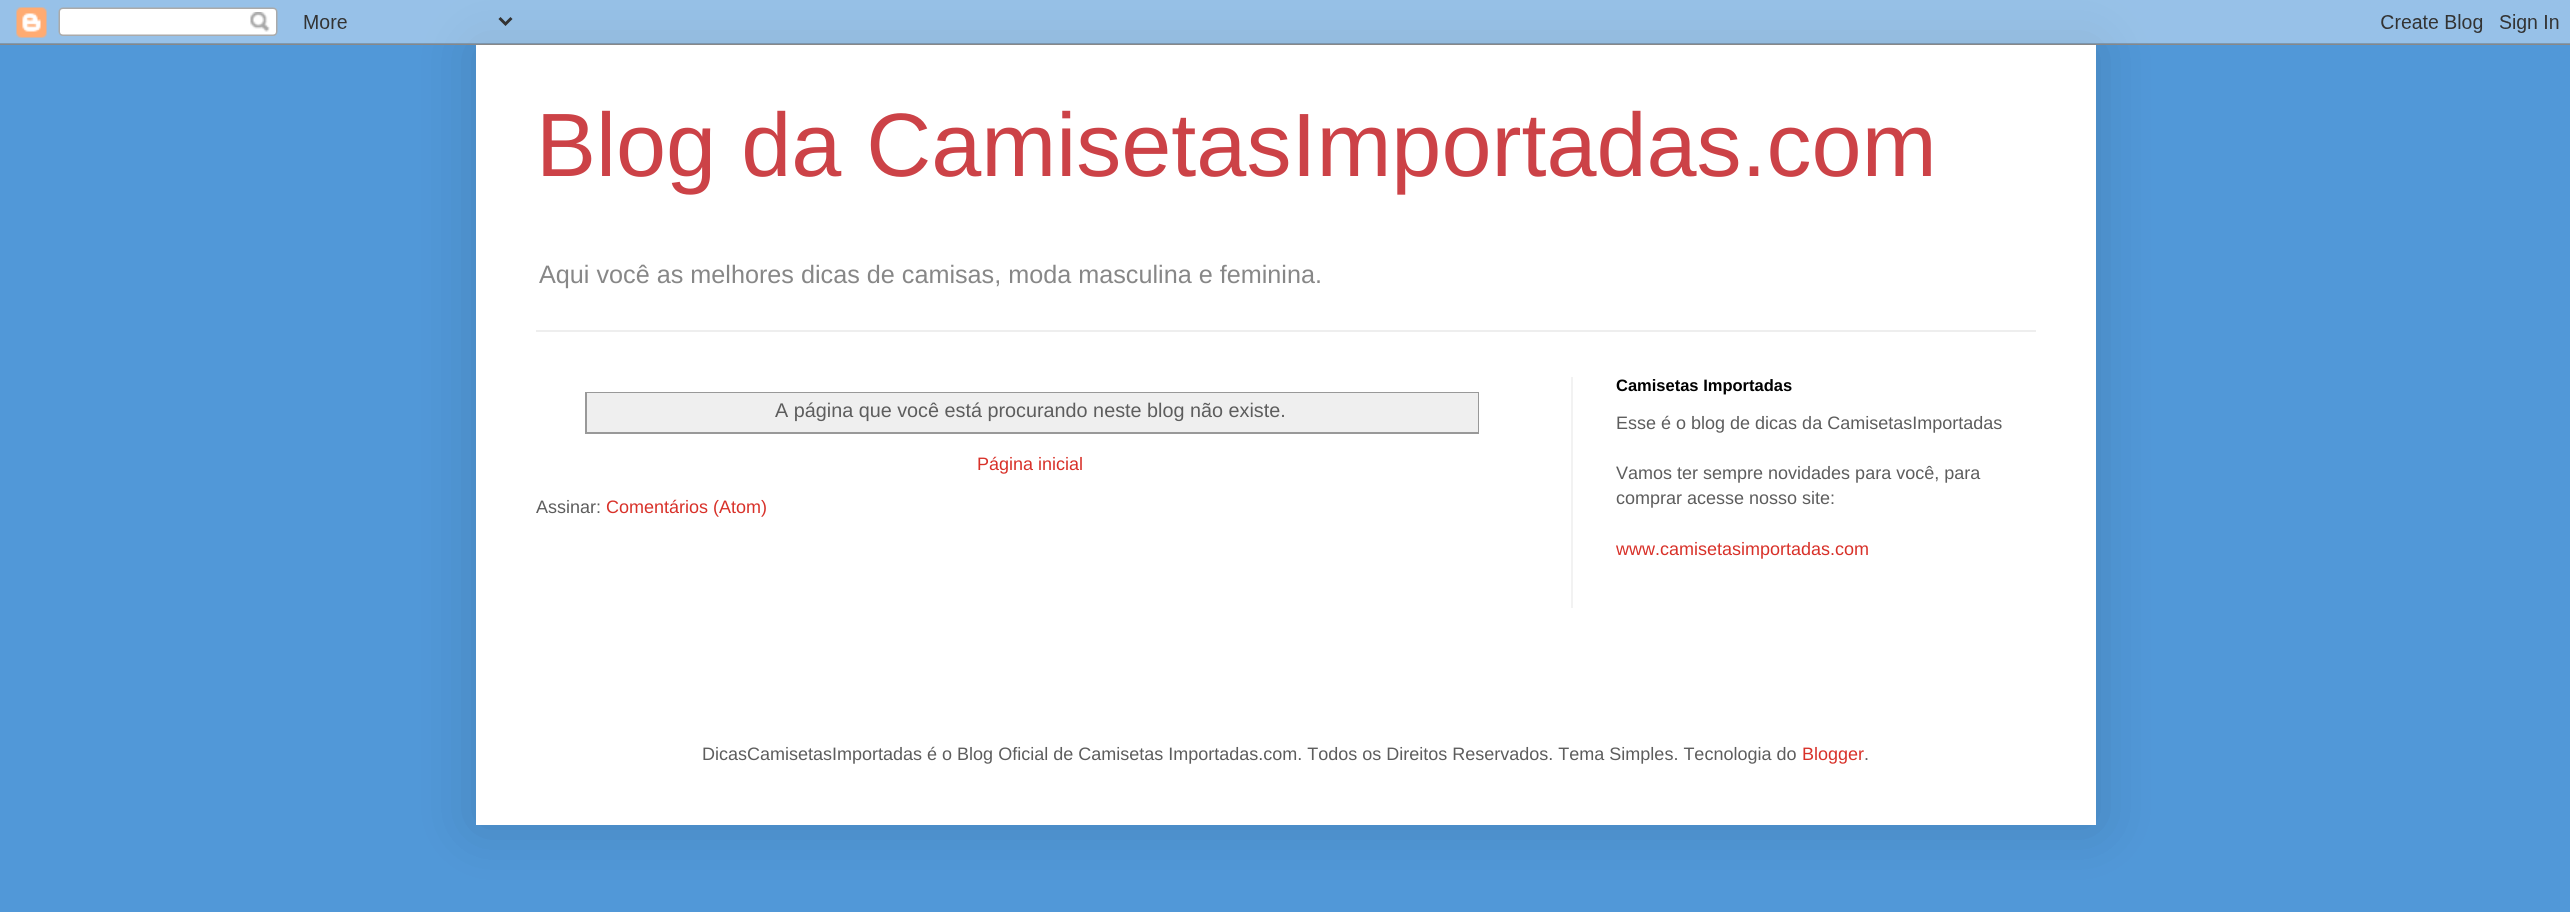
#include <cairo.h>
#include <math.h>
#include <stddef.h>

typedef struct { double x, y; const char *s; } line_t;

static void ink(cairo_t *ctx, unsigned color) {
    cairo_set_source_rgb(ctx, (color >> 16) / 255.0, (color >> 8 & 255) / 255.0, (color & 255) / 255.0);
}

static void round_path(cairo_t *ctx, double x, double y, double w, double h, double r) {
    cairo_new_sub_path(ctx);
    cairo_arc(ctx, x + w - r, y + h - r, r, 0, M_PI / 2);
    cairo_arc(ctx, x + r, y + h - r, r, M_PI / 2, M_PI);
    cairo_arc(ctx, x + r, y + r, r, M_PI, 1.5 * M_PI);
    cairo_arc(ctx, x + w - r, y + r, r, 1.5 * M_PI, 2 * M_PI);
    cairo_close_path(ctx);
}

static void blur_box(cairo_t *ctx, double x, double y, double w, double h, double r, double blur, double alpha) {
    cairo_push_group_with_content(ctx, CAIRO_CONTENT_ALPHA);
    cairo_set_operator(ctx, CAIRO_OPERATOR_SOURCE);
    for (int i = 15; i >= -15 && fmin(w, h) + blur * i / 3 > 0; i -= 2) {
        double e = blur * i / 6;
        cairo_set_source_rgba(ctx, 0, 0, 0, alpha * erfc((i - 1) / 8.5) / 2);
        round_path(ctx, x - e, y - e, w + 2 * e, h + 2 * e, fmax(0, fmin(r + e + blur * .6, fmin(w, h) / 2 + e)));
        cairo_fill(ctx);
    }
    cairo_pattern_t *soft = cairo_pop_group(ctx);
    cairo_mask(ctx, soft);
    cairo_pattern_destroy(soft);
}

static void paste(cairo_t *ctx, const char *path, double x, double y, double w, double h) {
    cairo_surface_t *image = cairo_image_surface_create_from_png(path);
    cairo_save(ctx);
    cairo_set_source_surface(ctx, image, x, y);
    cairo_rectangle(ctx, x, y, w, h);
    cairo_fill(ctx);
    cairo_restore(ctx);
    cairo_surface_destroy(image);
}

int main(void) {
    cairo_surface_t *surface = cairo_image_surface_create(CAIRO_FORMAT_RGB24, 2570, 912);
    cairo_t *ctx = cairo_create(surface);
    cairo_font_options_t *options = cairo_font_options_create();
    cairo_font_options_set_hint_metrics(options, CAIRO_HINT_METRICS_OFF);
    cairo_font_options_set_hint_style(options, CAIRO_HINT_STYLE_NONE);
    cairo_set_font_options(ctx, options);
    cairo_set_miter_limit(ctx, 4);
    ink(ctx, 0x5198D8);
    cairo_paint(ctx);
    ink(ctx, 0x000000);
    blur_box(ctx, 476, 45, 1620, 780, 0, 30, 0.15);
    paste(ctx, "media/1.png", 0, 0, 2570, 45);
    ink(ctx, 0xFFFFFF);
    cairo_rectangle(ctx, 476, 45, 1620, 780);
    cairo_fill(ctx);
    cairo_select_font_face(ctx, "Liberation Sans", CAIRO_FONT_SLANT_NORMAL, CAIRO_FONT_WEIGHT_NORMAL);
    cairo_set_font_size(ctx, 90);
    ink(ctx, 0xCC4247);
    cairo_move_to(ctx, 536, 176);
    cairo_show_text(ctx, "Blog da CamisetasImportadas.com");
    cairo_set_font_size(ctx, 25.2);
    ink(ctx, 0x878787);
    cairo_move_to(ctx, 539, 283);
    cairo_show_text(ctx, "Aqui você as melhores dicas de camisas, moda masculina e feminina.");
    ink(ctx, 0xEEEEEE);
    cairo_rectangle(ctx, 536, 330, 1500, 2);
    cairo_fill(ctx);
    ink(ctx, 0xF2F2F2);
    cairo_rectangle(ctx, 1571, 377, 2, 231);
    cairo_fill(ctx);
    cairo_rectangle(ctx, 586, 393, 892, 40);
    ink(ctx, 0x999999);
    cairo_stroke(ctx);
    ink(ctx, 0xEFEFEF);
    cairo_rectangle(ctx, 587, 393, 891, 39);
    cairo_fill(ctx);
    cairo_set_font_size(ctx, 19.8);
    ink(ctx, 0x5D5D5D);
    cairo_move_to(ctx, 775, 417);
    cairo_show_text(ctx, "A página que você está procurando neste blog não existe.");
    cairo_set_font_size(ctx, 18);
    ink(ctx, 0xD83129);
    cairo_move_to(ctx, 977, 470);
    cairo_show_text(ctx, "Página inicial");
    ink(ctx, 0x5D5D5D);
    cairo_move_to(ctx, 536, 513);
    cairo_show_text(ctx, "Assinar:");
    ink(ctx, 0xD83129);
    cairo_move_to(ctx, 606, 513);
    cairo_show_text(ctx, "Comentários (Atom)");
    cairo_select_font_face(ctx, "Liberation Sans", CAIRO_FONT_SLANT_NORMAL, CAIRO_FONT_WEIGHT_BOLD);
    cairo_set_font_size(ctx, 16.5);
    ink(ctx, 0x000000);
    cairo_move_to(ctx, 1616, 391);
    cairo_show_text(ctx, "Camisetas Importadas");
    cairo_select_font_face(ctx, "Liberation Sans", CAIRO_FONT_SLANT_NORMAL, CAIRO_FONT_WEIGHT_NORMAL);
    cairo_set_font_size(ctx, 18);
    ink(ctx, 0x5D5D5D);
    {
        static const line_t items[] = {
            {1616, 429, "Esse é o blog de dicas da CamisetasImportadas"},
            {1616, 479, "Vamos ter sempre novidades para você, para"},
            {1616, 504, "comprar acesse nosso site:"},
        };
        for (size_t i = 0; i < sizeof items / sizeof *items; i++) {
            cairo_move_to(ctx, items[i].x, items[i].y);
            cairo_show_text(ctx, items[i].s);
        }
    }
    ink(ctx, 0xD83129);
    cairo_move_to(ctx, 1616, 555);
    cairo_show_text(ctx, "www.camisetasimportadas.com");
    ink(ctx, 0x5D5D5D);
    cairo_move_to(ctx, 702, 760);
    cairo_show_text(ctx, "DicasCamisetasImportadas é o Blog Oficial de Camisetas Importadas.com. Todos os Direitos Reservados. Tema Simples. Tecnologia do");
    ink(ctx, 0xD83129);
    cairo_move_to(ctx, 1802, 760);
    cairo_show_text(ctx, "Blogger");
    ink(ctx, 0x5D5D5D);
    cairo_move_to(ctx, 1864, 760);
    cairo_show_text(ctx, ".");
    cairo_surface_write_to_png(surface, "image.png");
    cairo_font_options_destroy(options);
    cairo_destroy(ctx);
    cairo_surface_destroy(surface);
    return 0;
}
